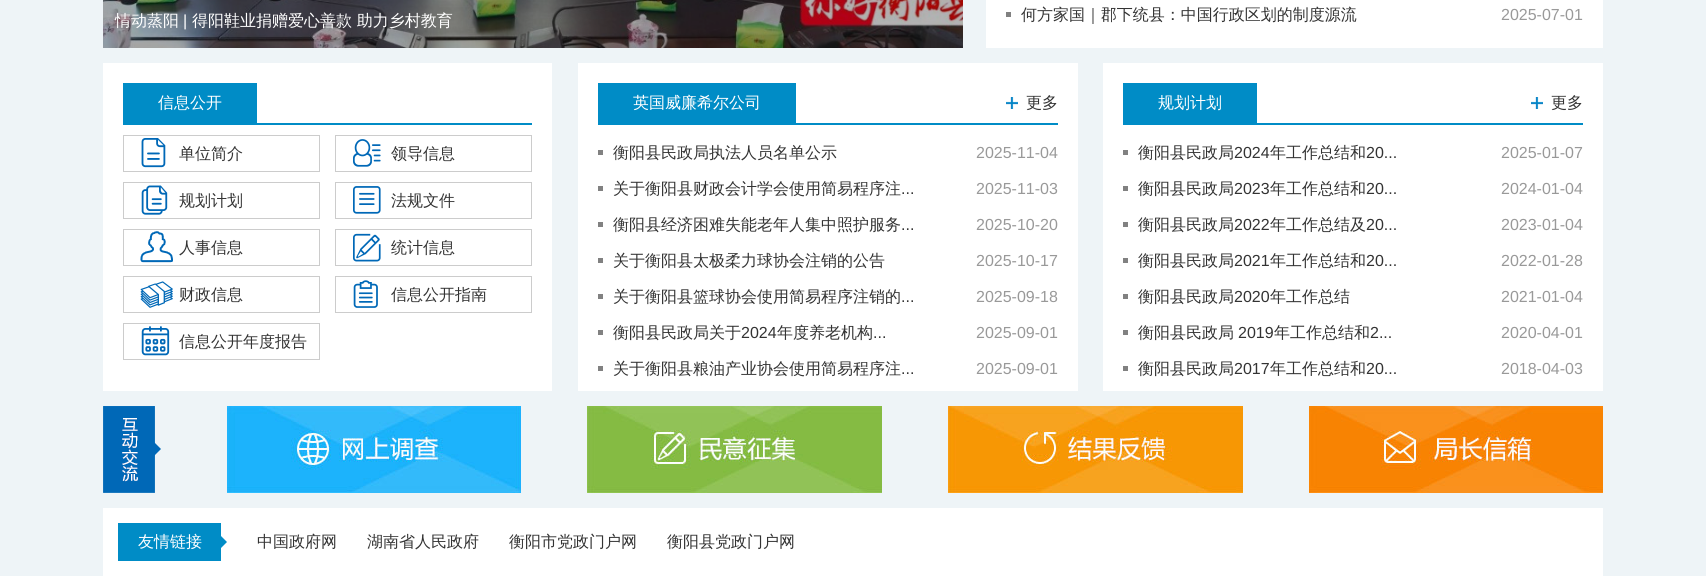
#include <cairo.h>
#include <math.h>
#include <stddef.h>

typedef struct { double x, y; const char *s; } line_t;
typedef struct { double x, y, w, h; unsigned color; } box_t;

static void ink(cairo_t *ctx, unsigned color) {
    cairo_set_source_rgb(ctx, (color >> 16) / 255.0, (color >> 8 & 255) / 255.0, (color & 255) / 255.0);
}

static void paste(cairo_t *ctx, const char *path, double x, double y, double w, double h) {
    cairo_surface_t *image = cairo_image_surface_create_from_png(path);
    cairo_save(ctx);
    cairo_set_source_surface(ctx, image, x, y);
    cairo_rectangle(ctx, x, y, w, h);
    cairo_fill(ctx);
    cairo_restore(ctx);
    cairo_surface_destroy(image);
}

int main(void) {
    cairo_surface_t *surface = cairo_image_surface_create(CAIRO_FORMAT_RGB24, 1706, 576);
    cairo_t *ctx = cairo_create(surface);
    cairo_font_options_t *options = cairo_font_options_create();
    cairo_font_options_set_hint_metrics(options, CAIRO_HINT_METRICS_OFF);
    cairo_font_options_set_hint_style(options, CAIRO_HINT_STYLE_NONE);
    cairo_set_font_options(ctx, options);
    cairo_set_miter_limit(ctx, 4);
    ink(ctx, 0xEEF4F7);
    cairo_paint(ctx);
    paste(ctx, "media/1.png", 103, 0, 860, 48);
    cairo_select_font_face(ctx, "WenQuanYi Zen Hei Medium", CAIRO_FONT_SLANT_NORMAL, CAIRO_FONT_WEIGHT_NORMAL);
    cairo_set_font_size(ctx, 16);
    ink(ctx, 0xFFFFFF);
    cairo_move_to(ctx, 115, 26);
    cairo_show_text(ctx, "情动蒸阳");
    cairo_select_font_face(ctx, "Liberation Sans", CAIRO_FONT_SLANT_NORMAL, CAIRO_FONT_WEIGHT_NORMAL);
    cairo_move_to(ctx, 183, 26);
    cairo_show_text(ctx, "|");
    cairo_select_font_face(ctx, "WenQuanYi Zen Hei Medium", CAIRO_FONT_SLANT_NORMAL, CAIRO_FONT_WEIGHT_NORMAL);
    cairo_move_to(ctx, 192, 26);
    cairo_show_text(ctx, "得阳鞋业捐赠爱心善款 助力乡村教育");
    cairo_rectangle(ctx, 986, 0, 617, 48);
    cairo_fill(ctx);
    ink(ctx, 0x333333);
    cairo_move_to(ctx, 1021, 20);
    cairo_show_text(ctx, "何方家国｜郡下统县：中国行政区划的制度源流");
    ink(ctx, 0x818181);
    cairo_rectangle(ctx, 1006, 12, 5, 5);
    cairo_fill(ctx);
    cairo_select_font_face(ctx, "Liberation Sans", CAIRO_FONT_SLANT_NORMAL, CAIRO_FONT_WEIGHT_NORMAL);
    ink(ctx, 0x999999);
    cairo_move_to(ctx, 1501, 20);
    cairo_show_text(ctx, "2025-07-01");
    {
        static const box_t items[] = {
            {103, 63, 449, 328, 0xFFFFFF},
            {123, 123, 409, 2, 0x008CC6},
            {123, 83, 134, 40, 0x008CC6},
        };
        for (size_t i = 0; i < sizeof items / sizeof *items; i++) {
            ink(ctx, items[i].color);
            cairo_rectangle(ctx, items[i].x, items[i].y, items[i].w, items[i].h);
            cairo_fill(ctx);
        }
    }
    cairo_select_font_face(ctx, "WenQuanYi Zen Hei Medium", CAIRO_FONT_SLANT_NORMAL, CAIRO_FONT_WEIGHT_NORMAL);
    ink(ctx, 0xFFFFFF);
    cairo_move_to(ctx, 158, 108);
    cairo_show_text(ctx, "信息公开");
    paste(ctx, "media/2.png", 141, 138, 25, 30);
    cairo_rectangle(ctx, 123.5, 135.5, 196, 36);
    ink(ctx, 0xCCCCCC);
    cairo_set_line_width(ctx, 1);
    cairo_stroke(ctx);
    ink(ctx, 0x333333);
    cairo_move_to(ctx, 179, 159);
    cairo_show_text(ctx, "单位简介");
    paste(ctx, "media/3.png", 353, 139, 28, 28);
    cairo_rectangle(ctx, 335.5, 135.5, 196, 36);
    ink(ctx, 0xCCCCCC);
    cairo_stroke(ctx);
    ink(ctx, 0x333333);
    cairo_move_to(ctx, 391, 159);
    cairo_show_text(ctx, "领导信息");
    paste(ctx, "media/4.png", 141, 185, 27, 30);
    cairo_rectangle(ctx, 123.5, 182.5, 196, 36);
    ink(ctx, 0xCCCCCC);
    cairo_stroke(ctx);
    ink(ctx, 0x333333);
    cairo_move_to(ctx, 179, 206);
    cairo_show_text(ctx, "规划计划");
    paste(ctx, "media/5.png", 353, 186, 28, 28);
    cairo_rectangle(ctx, 335.5, 182.5, 196, 36);
    ink(ctx, 0xCCCCCC);
    cairo_stroke(ctx);
    ink(ctx, 0x333333);
    cairo_move_to(ctx, 391, 206);
    cairo_show_text(ctx, "法规文件");
    paste(ctx, "media/6.png", 140, 231, 33, 32);
    cairo_rectangle(ctx, 123.5, 229.5, 196, 36);
    ink(ctx, 0xCCCCCC);
    cairo_stroke(ctx);
    ink(ctx, 0x333333);
    cairo_move_to(ctx, 179, 253);
    cairo_show_text(ctx, "人事信息");
    paste(ctx, "media/7.png", 353, 233, 28, 29);
    cairo_rectangle(ctx, 335.5, 229.5, 196, 36);
    ink(ctx, 0xCCCCCC);
    cairo_stroke(ctx);
    ink(ctx, 0x333333);
    cairo_move_to(ctx, 391, 253);
    cairo_show_text(ctx, "统计信息");
    paste(ctx, "media/8.png", 140, 281, 33, 27);
    cairo_rectangle(ctx, 123.5, 276.5, 196, 36);
    ink(ctx, 0xCCCCCC);
    cairo_stroke(ctx);
    ink(ctx, 0x333333);
    cairo_move_to(ctx, 179, 300);
    cairo_show_text(ctx, "财政信息");
    paste(ctx, "media/9.png", 353, 280, 25, 28);
    cairo_rectangle(ctx, 335.5, 276.5, 196, 36);
    ink(ctx, 0xCCCCCC);
    cairo_stroke(ctx);
    ink(ctx, 0x333333);
    cairo_move_to(ctx, 391, 300);
    cairo_show_text(ctx, "信息公开指南");
    paste(ctx, "media/10.png", 141, 326, 29, 30);
    cairo_rectangle(ctx, 123.5, 323.5, 196, 36);
    ink(ctx, 0xCCCCCC);
    cairo_stroke(ctx);
    ink(ctx, 0x333333);
    cairo_move_to(ctx, 179, 347);
    cairo_show_text(ctx, "信息公开年度报告");
    {
        static const box_t items[] = {
            {578, 63, 500, 328, 0xFFFFFF},
            {598, 123, 460, 2, 0x008CC6},
            {598, 83, 198, 40, 0x008CC6},
        };
        for (size_t i = 0; i < sizeof items / sizeof *items; i++) {
            ink(ctx, items[i].color);
            cairo_rectangle(ctx, items[i].x, items[i].y, items[i].w, items[i].h);
            cairo_fill(ctx);
        }
    }
    ink(ctx, 0xFFFFFF);
    cairo_move_to(ctx, 633, 108);
    cairo_show_text(ctx, "英国威廉希尔公司");
    paste(ctx, "media/11.png", 1006, 97, 12, 12);
    ink(ctx, 0x333333);
    cairo_move_to(ctx, 1026, 108);
    cairo_show_text(ctx, "更多");
    cairo_move_to(ctx, 613, 158);
    cairo_show_text(ctx, "衡阳县民政局执法人员名单公示");
    ink(ctx, 0x818181);
    cairo_rectangle(ctx, 598, 150, 5, 5);
    cairo_fill(ctx);
    cairo_select_font_face(ctx, "Liberation Sans", CAIRO_FONT_SLANT_NORMAL, CAIRO_FONT_WEIGHT_NORMAL);
    ink(ctx, 0x999999);
    cairo_move_to(ctx, 976, 158);
    cairo_show_text(ctx, "2025-11-04");
    cairo_select_font_face(ctx, "WenQuanYi Zen Hei Medium", CAIRO_FONT_SLANT_NORMAL, CAIRO_FONT_WEIGHT_NORMAL);
    ink(ctx, 0x333333);
    cairo_move_to(ctx, 613, 194);
    cairo_show_text(ctx, "关于衡阳县财政会计学会使用简易程序注");
    ink(ctx, 0x818181);
    cairo_rectangle(ctx, 598, 186, 5, 5);
    cairo_fill(ctx);
    cairo_select_font_face(ctx, "Liberation Sans", CAIRO_FONT_SLANT_NORMAL, CAIRO_FONT_WEIGHT_NORMAL);
    ink(ctx, 0x333333);
    cairo_move_to(ctx, 901, 194);
    cairo_show_text(ctx, "...");
    ink(ctx, 0x999999);
    cairo_move_to(ctx, 976, 194);
    cairo_show_text(ctx, "2025-11-03");
    cairo_select_font_face(ctx, "WenQuanYi Zen Hei Medium", CAIRO_FONT_SLANT_NORMAL, CAIRO_FONT_WEIGHT_NORMAL);
    ink(ctx, 0x333333);
    cairo_move_to(ctx, 613, 230);
    cairo_show_text(ctx, "衡阳县经济困难失能老年人集中照护服务");
    ink(ctx, 0x818181);
    cairo_rectangle(ctx, 598, 222, 5, 5);
    cairo_fill(ctx);
    cairo_select_font_face(ctx, "Liberation Sans", CAIRO_FONT_SLANT_NORMAL, CAIRO_FONT_WEIGHT_NORMAL);
    ink(ctx, 0x333333);
    cairo_move_to(ctx, 901, 230);
    cairo_show_text(ctx, "...");
    ink(ctx, 0x999999);
    cairo_move_to(ctx, 976, 230);
    cairo_show_text(ctx, "2025-10-20");
    cairo_select_font_face(ctx, "WenQuanYi Zen Hei Medium", CAIRO_FONT_SLANT_NORMAL, CAIRO_FONT_WEIGHT_NORMAL);
    ink(ctx, 0x333333);
    cairo_move_to(ctx, 613, 266);
    cairo_show_text(ctx, "关于衡阳县太极柔力球协会注销的公告");
    ink(ctx, 0x818181);
    cairo_rectangle(ctx, 598, 258, 5, 5);
    cairo_fill(ctx);
    cairo_select_font_face(ctx, "Liberation Sans", CAIRO_FONT_SLANT_NORMAL, CAIRO_FONT_WEIGHT_NORMAL);
    ink(ctx, 0x999999);
    cairo_move_to(ctx, 976, 266);
    cairo_show_text(ctx, "2025-10-17");
    cairo_select_font_face(ctx, "WenQuanYi Zen Hei Medium", CAIRO_FONT_SLANT_NORMAL, CAIRO_FONT_WEIGHT_NORMAL);
    ink(ctx, 0x333333);
    cairo_move_to(ctx, 613, 302);
    cairo_show_text(ctx, "关于衡阳县篮球协会使用简易程序注销的");
    ink(ctx, 0x818181);
    cairo_rectangle(ctx, 598, 294, 5, 5);
    cairo_fill(ctx);
    cairo_select_font_face(ctx, "Liberation Sans", CAIRO_FONT_SLANT_NORMAL, CAIRO_FONT_WEIGHT_NORMAL);
    ink(ctx, 0x333333);
    cairo_move_to(ctx, 901, 302);
    cairo_show_text(ctx, "...");
    ink(ctx, 0x999999);
    cairo_move_to(ctx, 976, 302);
    cairo_show_text(ctx, "2025-09-18");
    cairo_select_font_face(ctx, "WenQuanYi Zen Hei Medium", CAIRO_FONT_SLANT_NORMAL, CAIRO_FONT_WEIGHT_NORMAL);
    ink(ctx, 0x333333);
    cairo_move_to(ctx, 613, 338);
    cairo_show_text(ctx, "衡阳县民政局关于");
    ink(ctx, 0x818181);
    cairo_rectangle(ctx, 598, 330, 5, 5);
    cairo_fill(ctx);
    cairo_select_font_face(ctx, "Liberation Sans", CAIRO_FONT_SLANT_NORMAL, CAIRO_FONT_WEIGHT_NORMAL);
    ink(ctx, 0x333333);
    cairo_move_to(ctx, 741, 338);
    cairo_show_text(ctx, "2024");
    cairo_select_font_face(ctx, "WenQuanYi Zen Hei Medium", CAIRO_FONT_SLANT_NORMAL, CAIRO_FONT_WEIGHT_NORMAL);
    cairo_move_to(ctx, 777, 338);
    cairo_show_text(ctx, "年度养老机构");
    cairo_select_font_face(ctx, "Liberation Sans", CAIRO_FONT_SLANT_NORMAL, CAIRO_FONT_WEIGHT_NORMAL);
    cairo_move_to(ctx, 873, 338);
    cairo_show_text(ctx, "...");
    ink(ctx, 0x999999);
    cairo_move_to(ctx, 976, 338);
    cairo_show_text(ctx, "2025-09-01");
    cairo_select_font_face(ctx, "WenQuanYi Zen Hei Medium", CAIRO_FONT_SLANT_NORMAL, CAIRO_FONT_WEIGHT_NORMAL);
    ink(ctx, 0x333333);
    cairo_move_to(ctx, 613, 374);
    cairo_show_text(ctx, "关于衡阳县粮油产业协会使用简易程序注");
    ink(ctx, 0x818181);
    cairo_rectangle(ctx, 598, 366, 5, 5);
    cairo_fill(ctx);
    cairo_select_font_face(ctx, "Liberation Sans", CAIRO_FONT_SLANT_NORMAL, CAIRO_FONT_WEIGHT_NORMAL);
    ink(ctx, 0x333333);
    cairo_move_to(ctx, 901, 374);
    cairo_show_text(ctx, "...");
    ink(ctx, 0x999999);
    cairo_move_to(ctx, 976, 374);
    cairo_show_text(ctx, "2025-09-01");
    {
        static const box_t items[] = {
            {1103, 63, 500, 328, 0xFFFFFF},
            {1123, 123, 460, 2, 0x008CC6},
            {1123, 83, 134, 40, 0x008CC6},
        };
        for (size_t i = 0; i < sizeof items / sizeof *items; i++) {
            ink(ctx, items[i].color);
            cairo_rectangle(ctx, items[i].x, items[i].y, items[i].w, items[i].h);
            cairo_fill(ctx);
        }
    }
    cairo_select_font_face(ctx, "WenQuanYi Zen Hei Medium", CAIRO_FONT_SLANT_NORMAL, CAIRO_FONT_WEIGHT_NORMAL);
    ink(ctx, 0xFFFFFF);
    cairo_move_to(ctx, 1158, 108);
    cairo_show_text(ctx, "规划计划");
    paste(ctx, "media/11.png", 1531, 97, 12, 12);
    ink(ctx, 0x333333);
    cairo_move_to(ctx, 1551, 108);
    cairo_show_text(ctx, "更多");
    cairo_move_to(ctx, 1138, 158);
    cairo_show_text(ctx, "衡阳县民政局");
    ink(ctx, 0x818181);
    cairo_rectangle(ctx, 1123, 150, 5, 5);
    cairo_fill(ctx);
    cairo_select_font_face(ctx, "Liberation Sans", CAIRO_FONT_SLANT_NORMAL, CAIRO_FONT_WEIGHT_NORMAL);
    ink(ctx, 0x333333);
    cairo_move_to(ctx, 1234, 158);
    cairo_show_text(ctx, "2024");
    cairo_select_font_face(ctx, "WenQuanYi Zen Hei Medium", CAIRO_FONT_SLANT_NORMAL, CAIRO_FONT_WEIGHT_NORMAL);
    cairo_move_to(ctx, 1270, 158);
    cairo_show_text(ctx, "年工作总结和");
    cairo_select_font_face(ctx, "Liberation Sans", CAIRO_FONT_SLANT_NORMAL, CAIRO_FONT_WEIGHT_NORMAL);
    cairo_move_to(ctx, 1366, 158);
    cairo_show_text(ctx, "20...");
    ink(ctx, 0x999999);
    cairo_move_to(ctx, 1501, 158);
    cairo_show_text(ctx, "2025-01-07");
    cairo_select_font_face(ctx, "WenQuanYi Zen Hei Medium", CAIRO_FONT_SLANT_NORMAL, CAIRO_FONT_WEIGHT_NORMAL);
    ink(ctx, 0x333333);
    cairo_move_to(ctx, 1138, 194);
    cairo_show_text(ctx, "衡阳县民政局");
    ink(ctx, 0x818181);
    cairo_rectangle(ctx, 1123, 186, 5, 5);
    cairo_fill(ctx);
    cairo_select_font_face(ctx, "Liberation Sans", CAIRO_FONT_SLANT_NORMAL, CAIRO_FONT_WEIGHT_NORMAL);
    ink(ctx, 0x333333);
    cairo_move_to(ctx, 1234, 194);
    cairo_show_text(ctx, "2023");
    cairo_select_font_face(ctx, "WenQuanYi Zen Hei Medium", CAIRO_FONT_SLANT_NORMAL, CAIRO_FONT_WEIGHT_NORMAL);
    cairo_move_to(ctx, 1270, 194);
    cairo_show_text(ctx, "年工作总结和");
    cairo_select_font_face(ctx, "Liberation Sans", CAIRO_FONT_SLANT_NORMAL, CAIRO_FONT_WEIGHT_NORMAL);
    cairo_move_to(ctx, 1366, 194);
    cairo_show_text(ctx, "20...");
    ink(ctx, 0x999999);
    cairo_move_to(ctx, 1501, 194);
    cairo_show_text(ctx, "2024-01-04");
    cairo_select_font_face(ctx, "WenQuanYi Zen Hei Medium", CAIRO_FONT_SLANT_NORMAL, CAIRO_FONT_WEIGHT_NORMAL);
    ink(ctx, 0x333333);
    cairo_move_to(ctx, 1138, 230);
    cairo_show_text(ctx, "衡阳县民政局");
    ink(ctx, 0x818181);
    cairo_rectangle(ctx, 1123, 222, 5, 5);
    cairo_fill(ctx);
    cairo_select_font_face(ctx, "Liberation Sans", CAIRO_FONT_SLANT_NORMAL, CAIRO_FONT_WEIGHT_NORMAL);
    ink(ctx, 0x333333);
    cairo_move_to(ctx, 1234, 230);
    cairo_show_text(ctx, "2022");
    cairo_select_font_face(ctx, "WenQuanYi Zen Hei Medium", CAIRO_FONT_SLANT_NORMAL, CAIRO_FONT_WEIGHT_NORMAL);
    cairo_move_to(ctx, 1270, 230);
    cairo_show_text(ctx, "年工作总结及");
    cairo_select_font_face(ctx, "Liberation Sans", CAIRO_FONT_SLANT_NORMAL, CAIRO_FONT_WEIGHT_NORMAL);
    cairo_move_to(ctx, 1366, 230);
    cairo_show_text(ctx, "20...");
    ink(ctx, 0x999999);
    cairo_move_to(ctx, 1501, 230);
    cairo_show_text(ctx, "2023-01-04");
    cairo_select_font_face(ctx, "WenQuanYi Zen Hei Medium", CAIRO_FONT_SLANT_NORMAL, CAIRO_FONT_WEIGHT_NORMAL);
    ink(ctx, 0x333333);
    cairo_move_to(ctx, 1138, 266);
    cairo_show_text(ctx, "衡阳县民政局");
    ink(ctx, 0x818181);
    cairo_rectangle(ctx, 1123, 258, 5, 5);
    cairo_fill(ctx);
    cairo_select_font_face(ctx, "Liberation Sans", CAIRO_FONT_SLANT_NORMAL, CAIRO_FONT_WEIGHT_NORMAL);
    ink(ctx, 0x333333);
    cairo_move_to(ctx, 1234, 266);
    cairo_show_text(ctx, "2021");
    cairo_select_font_face(ctx, "WenQuanYi Zen Hei Medium", CAIRO_FONT_SLANT_NORMAL, CAIRO_FONT_WEIGHT_NORMAL);
    cairo_move_to(ctx, 1270, 266);
    cairo_show_text(ctx, "年工作总结和");
    cairo_select_font_face(ctx, "Liberation Sans", CAIRO_FONT_SLANT_NORMAL, CAIRO_FONT_WEIGHT_NORMAL);
    cairo_move_to(ctx, 1366, 266);
    cairo_show_text(ctx, "20...");
    ink(ctx, 0x999999);
    cairo_move_to(ctx, 1501, 266);
    cairo_show_text(ctx, "2022-01-28");
    cairo_select_font_face(ctx, "WenQuanYi Zen Hei Medium", CAIRO_FONT_SLANT_NORMAL, CAIRO_FONT_WEIGHT_NORMAL);
    ink(ctx, 0x333333);
    cairo_move_to(ctx, 1138, 302);
    cairo_show_text(ctx, "衡阳县民政局");
    ink(ctx, 0x818181);
    cairo_rectangle(ctx, 1123, 294, 5, 5);
    cairo_fill(ctx);
    cairo_select_font_face(ctx, "Liberation Sans", CAIRO_FONT_SLANT_NORMAL, CAIRO_FONT_WEIGHT_NORMAL);
    ink(ctx, 0x333333);
    cairo_move_to(ctx, 1234, 302);
    cairo_show_text(ctx, "2020");
    cairo_select_font_face(ctx, "WenQuanYi Zen Hei Medium", CAIRO_FONT_SLANT_NORMAL, CAIRO_FONT_WEIGHT_NORMAL);
    cairo_move_to(ctx, 1270, 302);
    cairo_show_text(ctx, "年工作总结");
    cairo_select_font_face(ctx, "Liberation Sans", CAIRO_FONT_SLANT_NORMAL, CAIRO_FONT_WEIGHT_NORMAL);
    ink(ctx, 0x999999);
    cairo_move_to(ctx, 1501, 302);
    cairo_show_text(ctx, "2021-01-04");
    cairo_select_font_face(ctx, "WenQuanYi Zen Hei Medium", CAIRO_FONT_SLANT_NORMAL, CAIRO_FONT_WEIGHT_NORMAL);
    ink(ctx, 0x333333);
    cairo_move_to(ctx, 1138, 338);
    cairo_show_text(ctx, "衡阳县民政局");
    ink(ctx, 0x818181);
    cairo_rectangle(ctx, 1123, 330, 5, 5);
    cairo_fill(ctx);
    cairo_select_font_face(ctx, "Liberation Sans", CAIRO_FONT_SLANT_NORMAL, CAIRO_FONT_WEIGHT_NORMAL);
    ink(ctx, 0x333333);
    cairo_move_to(ctx, 1238, 338);
    cairo_show_text(ctx, "2019");
    cairo_select_font_face(ctx, "WenQuanYi Zen Hei Medium", CAIRO_FONT_SLANT_NORMAL, CAIRO_FONT_WEIGHT_NORMAL);
    cairo_move_to(ctx, 1274, 338);
    cairo_show_text(ctx, "年工作总结和");
    cairo_select_font_face(ctx, "Liberation Sans", CAIRO_FONT_SLANT_NORMAL, CAIRO_FONT_WEIGHT_NORMAL);
    cairo_move_to(ctx, 1370, 338);
    cairo_show_text(ctx, "2...");
    ink(ctx, 0x999999);
    cairo_move_to(ctx, 1501, 338);
    cairo_show_text(ctx, "2020-04-01");
    cairo_select_font_face(ctx, "WenQuanYi Zen Hei Medium", CAIRO_FONT_SLANT_NORMAL, CAIRO_FONT_WEIGHT_NORMAL);
    ink(ctx, 0x333333);
    cairo_move_to(ctx, 1138, 374);
    cairo_show_text(ctx, "衡阳县民政局");
    ink(ctx, 0x818181);
    cairo_rectangle(ctx, 1123, 366, 5, 5);
    cairo_fill(ctx);
    cairo_select_font_face(ctx, "Liberation Sans", CAIRO_FONT_SLANT_NORMAL, CAIRO_FONT_WEIGHT_NORMAL);
    ink(ctx, 0x333333);
    cairo_move_to(ctx, 1234, 374);
    cairo_show_text(ctx, "2017");
    cairo_select_font_face(ctx, "WenQuanYi Zen Hei Medium", CAIRO_FONT_SLANT_NORMAL, CAIRO_FONT_WEIGHT_NORMAL);
    cairo_move_to(ctx, 1270, 374);
    cairo_show_text(ctx, "年工作总结和");
    cairo_select_font_face(ctx, "Liberation Sans", CAIRO_FONT_SLANT_NORMAL, CAIRO_FONT_WEIGHT_NORMAL);
    cairo_move_to(ctx, 1366, 374);
    cairo_show_text(ctx, "20...");
    ink(ctx, 0x999999);
    cairo_move_to(ctx, 1501, 374);
    cairo_show_text(ctx, "2018-04-03");
    paste(ctx, "media/12.png", 103, 406, 58, 87);
    paste(ctx, "media/13.png", 227, 406, 294, 87);
    paste(ctx, "media/14.png", 587, 406, 295, 87);
    paste(ctx, "media/15.png", 948, 406, 295, 87);
    paste(ctx, "media/16.png", 1309, 406, 294, 87);
    ink(ctx, 0xFFFFFF);
    cairo_rectangle(ctx, 103, 508, 1500, 68);
    cairo_fill(ctx);
    paste(ctx, "media/17.png", 118, 523, 109, 38);
    cairo_select_font_face(ctx, "WenQuanYi Zen Hei Medium", CAIRO_FONT_SLANT_NORMAL, CAIRO_FONT_WEIGHT_NORMAL);
    cairo_move_to(ctx, 138, 547);
    cairo_show_text(ctx, "友情链接");
    ink(ctx, 0x333333);
    {
        static const line_t items[] = {
            {257, 547, "中国政府网"},
            {367, 547, "湖南省人民政府"},
            {509, 547, "衡阳市党政门户网"},
            {667, 547, "衡阳县党政门户网"},
        };
        for (size_t i = 0; i < sizeof items / sizeof *items; i++) {
            cairo_move_to(ctx, items[i].x, items[i].y);
            cairo_show_text(ctx, items[i].s);
        }
    }
    cairo_surface_write_to_png(surface, "image.png");
    cairo_font_options_destroy(options);
    cairo_destroy(ctx);
    cairo_surface_destroy(surface);
    return 0;
}
